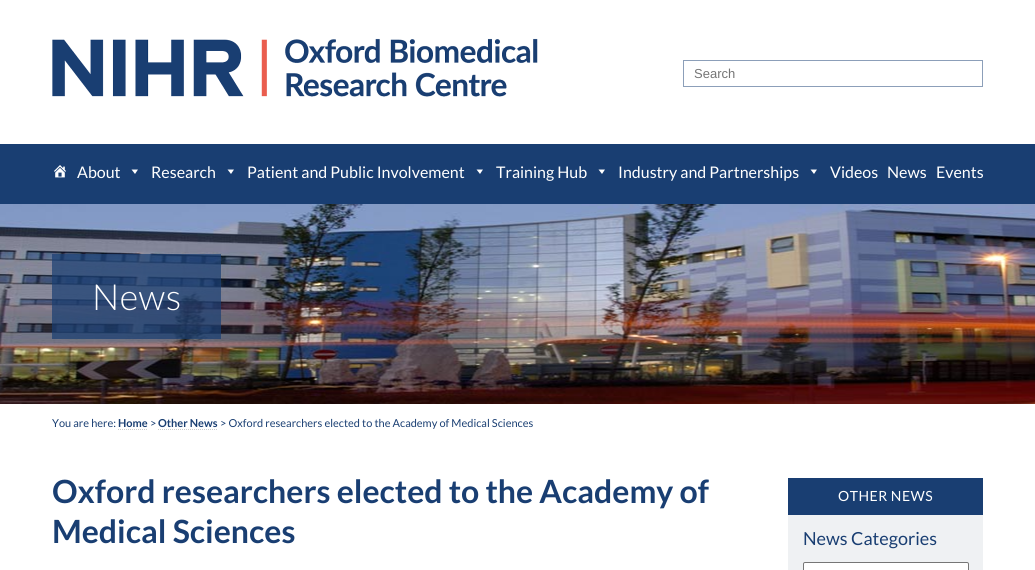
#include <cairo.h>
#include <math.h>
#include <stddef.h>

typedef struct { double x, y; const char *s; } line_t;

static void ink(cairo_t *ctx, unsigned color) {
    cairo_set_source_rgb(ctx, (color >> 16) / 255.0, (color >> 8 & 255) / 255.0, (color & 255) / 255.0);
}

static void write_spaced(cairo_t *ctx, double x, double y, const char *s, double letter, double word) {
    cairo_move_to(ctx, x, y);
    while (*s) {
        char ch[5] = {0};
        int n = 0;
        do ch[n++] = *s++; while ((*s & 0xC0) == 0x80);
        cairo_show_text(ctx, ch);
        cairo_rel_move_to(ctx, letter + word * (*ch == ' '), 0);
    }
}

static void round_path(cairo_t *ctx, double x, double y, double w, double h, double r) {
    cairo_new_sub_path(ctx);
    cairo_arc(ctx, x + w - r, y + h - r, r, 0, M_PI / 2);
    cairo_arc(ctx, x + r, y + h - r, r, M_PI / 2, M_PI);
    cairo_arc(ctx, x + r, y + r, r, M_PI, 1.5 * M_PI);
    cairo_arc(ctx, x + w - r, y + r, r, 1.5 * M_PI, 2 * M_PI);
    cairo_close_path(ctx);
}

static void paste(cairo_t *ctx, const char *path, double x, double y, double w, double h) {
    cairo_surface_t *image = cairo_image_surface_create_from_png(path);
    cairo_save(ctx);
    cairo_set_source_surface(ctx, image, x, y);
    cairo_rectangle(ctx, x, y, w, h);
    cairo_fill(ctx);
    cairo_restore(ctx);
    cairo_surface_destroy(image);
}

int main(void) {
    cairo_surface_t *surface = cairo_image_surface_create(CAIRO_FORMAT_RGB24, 1035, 570);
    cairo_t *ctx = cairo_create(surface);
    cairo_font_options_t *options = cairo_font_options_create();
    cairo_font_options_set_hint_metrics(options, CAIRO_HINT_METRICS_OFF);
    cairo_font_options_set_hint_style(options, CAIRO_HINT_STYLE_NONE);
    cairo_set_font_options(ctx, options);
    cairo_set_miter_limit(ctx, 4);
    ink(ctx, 0xFFFFFF);
    cairo_paint(ctx);
    paste(ctx, "media/1.png", 52, 38, 486, 59);
    cairo_rectangle(ctx, 683.5, 60.5, 299, 26);
    ink(ctx, 0x8C9FB9);
    cairo_set_line_width(ctx, 1);
    cairo_stroke(ctx);
    cairo_select_font_face(ctx, "Liberation Sans", CAIRO_FONT_SLANT_NORMAL, CAIRO_FONT_WEIGHT_NORMAL);
    cairo_set_font_size(ctx, 13);
    ink(ctx, 0x757575);
    cairo_move_to(ctx, 694, 78);
    cairo_show_text(ctx, "Search");
    ink(ctx, 0x193E72);
    cairo_rectangle(ctx, 0, 144, 1035, 60);
    cairo_fill(ctx);
    paste(ctx, "media/2.png", 54, 165, 12, 13);
    cairo_select_font_face(ctx, "Lato", CAIRO_FONT_SLANT_NORMAL, CAIRO_FONT_WEIGHT_NORMAL);
    cairo_set_font_size(ctx, 16);
    ink(ctx, 0xFFFFFF);
    cairo_move_to(ctx, 77, 178);
    cairo_show_text(ctx, "About");
    cairo_new_path(ctx);
    cairo_move_to(ctx, 138, 169.5);
    cairo_line_to(ctx, 135, 174);
    cairo_line_to(ctx, 131.5, 169.5);
    cairo_close_path(ctx);
    cairo_fill(ctx);
    cairo_move_to(ctx, 151, 178);
    cairo_show_text(ctx, "Research");
    cairo_new_path(ctx);
    cairo_move_to(ctx, 234, 169.5);
    cairo_line_to(ctx, 231, 174);
    cairo_line_to(ctx, 227.5, 169.5);
    cairo_close_path(ctx);
    cairo_fill(ctx);
    cairo_move_to(ctx, 247, 178);
    cairo_show_text(ctx, "Patient and Public Involvement");
    cairo_new_path(ctx);
    cairo_move_to(ctx, 483, 169.5);
    cairo_line_to(ctx, 480, 174);
    cairo_line_to(ctx, 476.5, 169.5);
    cairo_close_path(ctx);
    cairo_fill(ctx);
    cairo_move_to(ctx, 496, 178);
    cairo_show_text(ctx, "Training Hub");
    cairo_new_path(ctx);
    cairo_move_to(ctx, 605, 169.5);
    cairo_line_to(ctx, 602, 174);
    cairo_line_to(ctx, 598.5, 169.5);
    cairo_close_path(ctx);
    cairo_fill(ctx);
    cairo_move_to(ctx, 618, 178);
    cairo_show_text(ctx, "Industry and Partnerships");
    cairo_new_path(ctx);
    cairo_move_to(ctx, 817, 169.5);
    cairo_line_to(ctx, 814, 174);
    cairo_line_to(ctx, 810.5, 169.5);
    cairo_close_path(ctx);
    cairo_fill(ctx);
    {
        static const line_t items[] = {
            {830, 178, "Videos"},
            {887, 178, "News"},
            {936, 178, "Events"},
        };
        for (size_t i = 0; i < sizeof items / sizeof *items; i++) {
            cairo_move_to(ctx, items[i].x, items[i].y);
            cairo_show_text(ctx, items[i].s);
        }
    }
    paste(ctx, "media/3.png", 0, 204, 1035, 200);
    cairo_set_source_rgba(ctx, 0.098, 0.243, 0.447, 0.7);
    cairo_rectangle(ctx, 52, 254, 169, 85);
    cairo_fill(ctx);
    cairo_select_font_face(ctx, "Lato Light", CAIRO_FONT_SLANT_NORMAL, CAIRO_FONT_WEIGHT_NORMAL);
    cairo_set_font_size(ctx, 36);
    ink(ctx, 0xFFFFFF);
    write_spaced(ctx, 92, 310, "News", 0.5, 0);
    cairo_select_font_face(ctx, "Lato", CAIRO_FONT_SLANT_NORMAL, CAIRO_FONT_WEIGHT_NORMAL);
    cairo_set_font_size(ctx, 11);
    ink(ctx, 0x193E72);
    cairo_move_to(ctx, 52, 427);
    cairo_show_text(ctx, "You are here:");
    cairo_select_font_face(ctx, "Lato", CAIRO_FONT_SLANT_NORMAL, CAIRO_FONT_WEIGHT_BOLD);
    cairo_move_to(ctx, 118, 427);
    cairo_show_text(ctx, "Home");
    cairo_new_path(ctx);
    cairo_move_to(ctx, 118, 429.5);
    cairo_line_to(ctx, 148, 429.5);
    ink(ctx, 0xCCCCCC);
    cairo_set_dash(ctx, (double[]){1, 1}, 2, 0);
    cairo_stroke(ctx);
    cairo_select_font_face(ctx, "Lato", CAIRO_FONT_SLANT_NORMAL, CAIRO_FONT_WEIGHT_NORMAL);
    ink(ctx, 0x193E72);
    cairo_move_to(ctx, 150, 427);
    cairo_show_text(ctx, ">");
    cairo_select_font_face(ctx, "Lato", CAIRO_FONT_SLANT_NORMAL, CAIRO_FONT_WEIGHT_BOLD);
    cairo_move_to(ctx, 158, 427);
    cairo_show_text(ctx, "Other News");
    cairo_new_path(ctx);
    cairo_move_to(ctx, 158, 429.5);
    cairo_line_to(ctx, 218, 429.5);
    ink(ctx, 0xCCCCCC);
    cairo_stroke(ctx);
    cairo_select_font_face(ctx, "Lato", CAIRO_FONT_SLANT_NORMAL, CAIRO_FONT_WEIGHT_NORMAL);
    ink(ctx, 0x193E72);
    cairo_move_to(ctx, 220, 427);
    cairo_show_text(ctx, "> Oxford researchers elected to the Academy of Medical Sciences");
    cairo_select_font_face(ctx, "Lato", CAIRO_FONT_SLANT_NORMAL, CAIRO_FONT_WEIGHT_BOLD);
    cairo_set_font_size(ctx, 32);
    cairo_move_to(ctx, 52, 503);
    cairo_show_text(ctx, "Oxford researchers elected to the Academy of");
    cairo_move_to(ctx, 52, 543);
    cairo_show_text(ctx, "Medical Sciences");
    ink(ctx, 0xEFF1F3);
    cairo_rectangle(ctx, 788, 515, 195, 55);
    cairo_fill(ctx);
    ink(ctx, 0x193E72);
    cairo_rectangle(ctx, 788, 478, 195, 37);
    cairo_fill(ctx);
    cairo_select_font_face(ctx, "Lato", CAIRO_FONT_SLANT_NORMAL, CAIRO_FONT_WEIGHT_NORMAL);
    cairo_set_font_size(ctx, 14);
    ink(ctx, 0xFFFFFF);
    write_spaced(ctx, 838, 501, "OTHER NEWS", 0.5, 0);
    cairo_set_font_size(ctx, 18);
    ink(ctx, 0x193E72);
    cairo_move_to(ctx, 803, 545);
    cairo_show_text(ctx, "News Categories");
    ink(ctx, 0xFFFFFF);
    round_path(ctx, 803.5, 562.5, 165, 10, 1.5);
    cairo_fill_preserve(ctx);
    ink(ctx, 0x767676);
    cairo_set_dash(ctx, NULL, 0, 0);
    cairo_stroke(ctx);
    cairo_surface_write_to_png(surface, "image.png");
    cairo_font_options_destroy(options);
    cairo_destroy(ctx);
    cairo_surface_destroy(surface);
    return 0;
}
